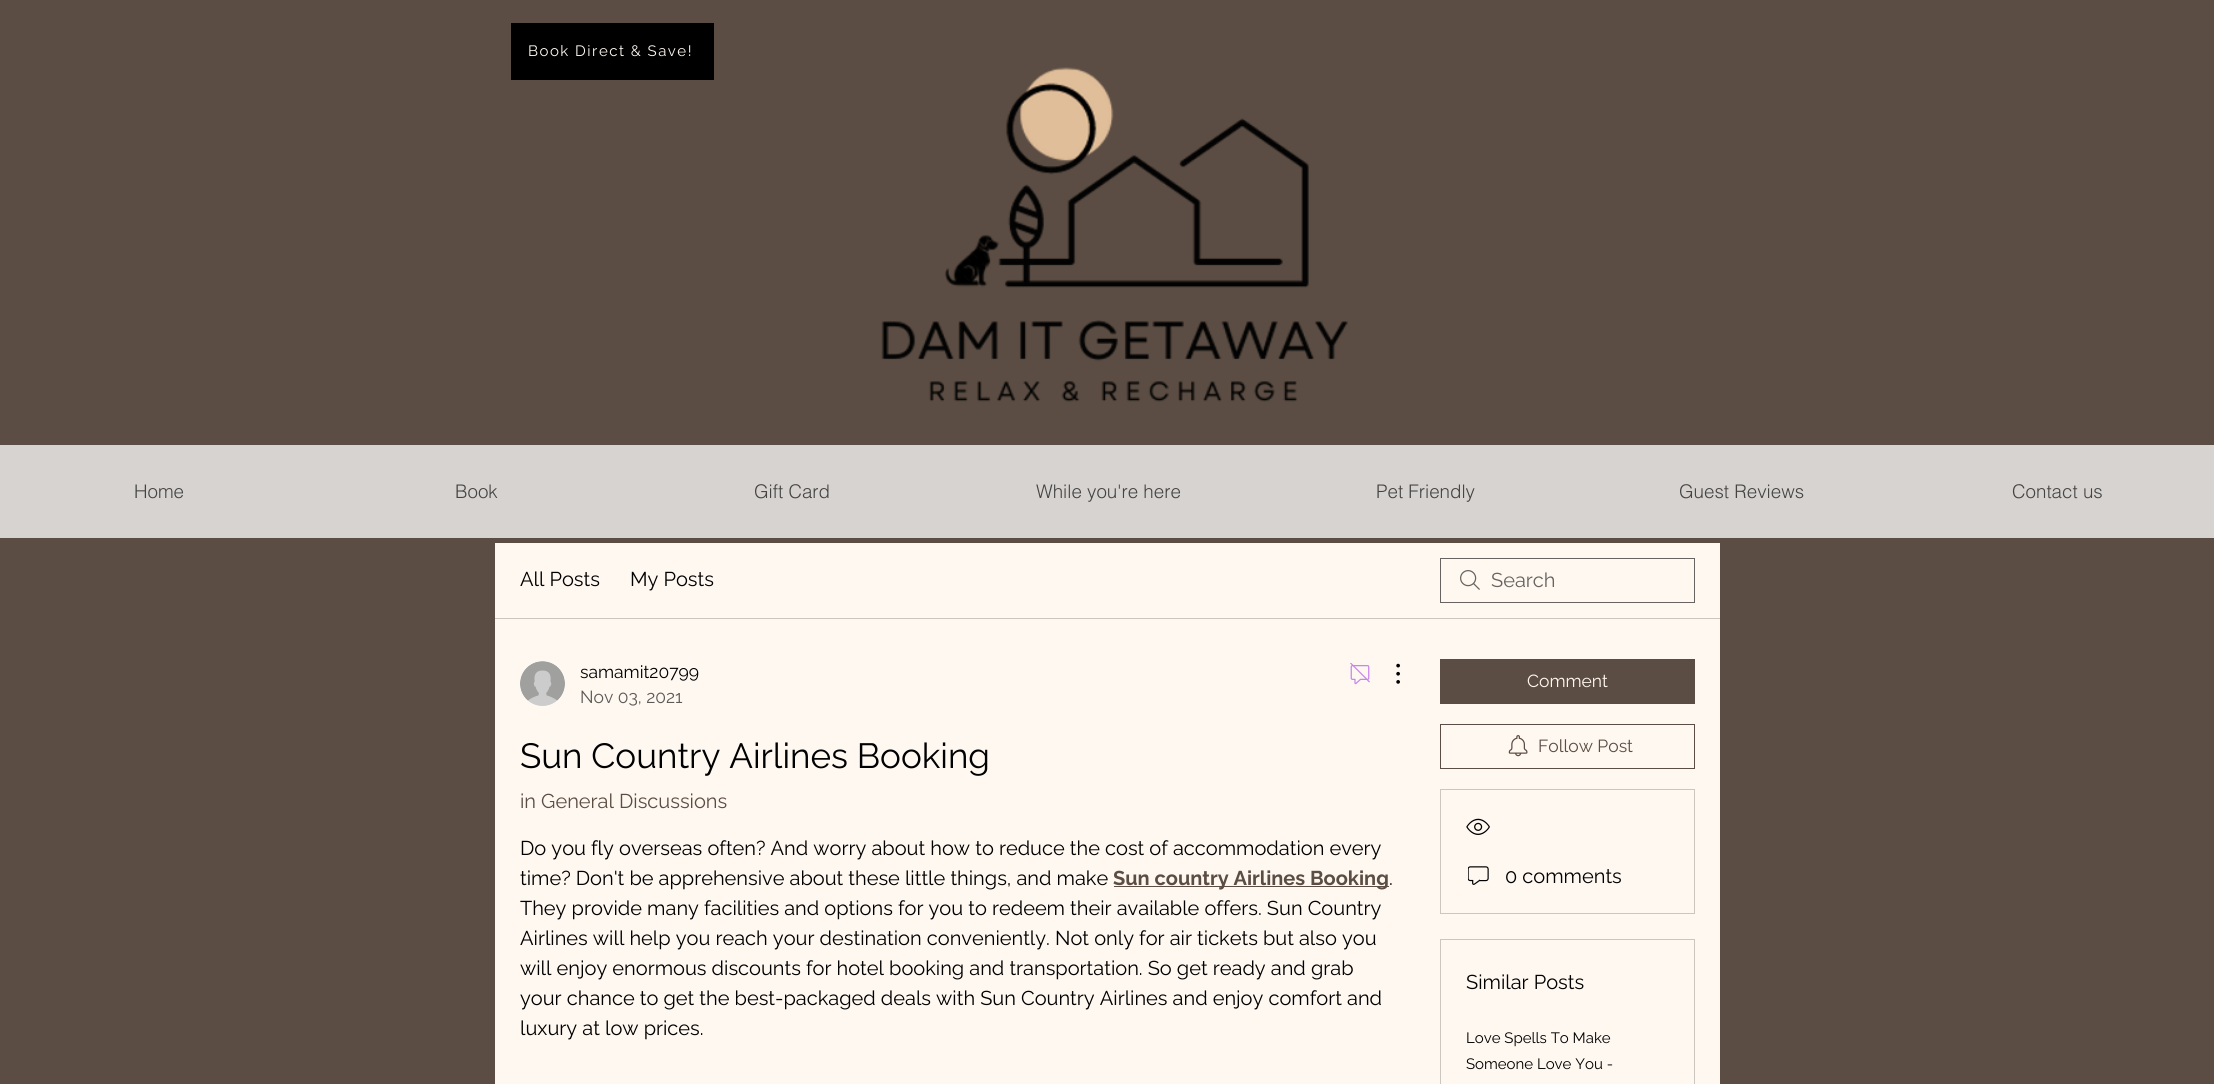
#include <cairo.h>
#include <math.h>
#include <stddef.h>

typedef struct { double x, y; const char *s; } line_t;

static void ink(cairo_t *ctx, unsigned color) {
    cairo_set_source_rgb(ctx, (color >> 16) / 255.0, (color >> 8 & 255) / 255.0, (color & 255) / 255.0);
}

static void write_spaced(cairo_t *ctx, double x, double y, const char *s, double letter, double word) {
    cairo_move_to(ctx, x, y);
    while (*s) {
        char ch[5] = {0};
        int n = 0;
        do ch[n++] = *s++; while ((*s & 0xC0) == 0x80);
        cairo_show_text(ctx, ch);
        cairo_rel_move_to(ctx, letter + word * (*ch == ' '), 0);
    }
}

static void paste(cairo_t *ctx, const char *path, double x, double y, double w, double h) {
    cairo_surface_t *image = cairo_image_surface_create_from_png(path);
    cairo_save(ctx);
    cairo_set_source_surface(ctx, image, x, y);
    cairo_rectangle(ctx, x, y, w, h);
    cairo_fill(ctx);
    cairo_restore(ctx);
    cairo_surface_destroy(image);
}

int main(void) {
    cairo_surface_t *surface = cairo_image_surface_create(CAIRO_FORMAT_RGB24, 2214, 1084);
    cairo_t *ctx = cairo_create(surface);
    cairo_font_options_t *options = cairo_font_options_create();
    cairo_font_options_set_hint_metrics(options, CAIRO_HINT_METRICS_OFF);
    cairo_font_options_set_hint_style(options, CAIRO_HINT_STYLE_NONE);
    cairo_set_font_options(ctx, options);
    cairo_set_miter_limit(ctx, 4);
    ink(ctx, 0x5B4D43);
    cairo_paint(ctx);
    ink(ctx, 0x000000);
    cairo_rectangle(ctx, 511, 23, 203, 57);
    cairo_fill(ctx);
    cairo_select_font_face(ctx, "Raleway", CAIRO_FONT_SLANT_NORMAL, CAIRO_FONT_WEIGHT_NORMAL);
    cairo_set_font_size(ctx, 15);
    ink(ctx, 0xFFF8F1);
    write_spaced(ctx, 528, 56, "Book Direct & Save!", 1.5, 0);
    paste(ctx, "media/1.png", 881, 67, 467, 335);
    ink(ctx, 0xD6D3D0);
    cairo_rectangle(ctx, 0, 445, 2214, 93);
    cairo_fill(ctx);
    cairo_select_font_face(ctx, "helvetica Light", CAIRO_FONT_SLANT_NORMAL, CAIRO_FONT_WEIGHT_NORMAL);
    cairo_set_font_size(ctx, 18.75);
    ink(ctx, 0x444444);
    {
        static const line_t items[] = {
            {134, 498, "Home"},
            {455, 498, "Book"},
            {754, 498, "Gift Card"},
            {1036, 498, "While you're here"},
            {1376, 498, "Pet Friendly"},
            {1679, 498, "Guest Reviews"},
            {2012, 498, "Contact us"},
        };
        for (size_t i = 0; i < sizeof items / sizeof *items; i++) {
            cairo_move_to(ctx, items[i].x, items[i].y);
            cairo_show_text(ctx, items[i].s);
        }
    }
    ink(ctx, 0xFFF8F1);
    cairo_rectangle(ctx, 495, 543, 1225, 541);
    cairo_fill(ctx);
    ink(ctx, 0xCCC6C1);
    cairo_rectangle(ctx, 495, 618, 1225, 1);
    cairo_fill(ctx);
    cairo_select_font_face(ctx, "Raleway", CAIRO_FONT_SLANT_NORMAL, CAIRO_FONT_WEIGHT_NORMAL);
    cairo_set_font_size(ctx, 20);
    ink(ctx, 0x000000);
    cairo_move_to(ctx, 520, 586);
    cairo_show_text(ctx, "All Posts");
    cairo_move_to(ctx, 630, 586);
    cairo_show_text(ctx, "My Posts");
    paste(ctx, "media/2.png", 1460, 570, 20, 20);
    cairo_rectangle(ctx, 1440.5, 558.5, 254, 44);
    ink(ctx, 0x666360);
    cairo_set_line_width(ctx, 1);
    cairo_stroke(ctx);
    cairo_move_to(ctx, 1491, 587);
    cairo_show_text(ctx, "Search");
    paste(ctx, "media/3.png", 520, 661, 45, 45);
    cairo_set_font_size(ctx, 17.5);
    ink(ctx, 0x000000);
    cairo_move_to(ctx, 580, 678);
    cairo_show_text(ctx, "samamit20799");
    ink(ctx, 0x5C5957);
    cairo_move_to(ctx, 580, 703);
    cairo_show_text(ctx, "Nov 03, 2021");
    paste(ctx, "media/4.png", 1350, 663, 20, 22);
    paste(ctx, "media/5.png", 1396, 663, 4, 21);
    cairo_set_font_size(ctx, 35);
    ink(ctx, 0x000000);
    cairo_move_to(ctx, 520, 768);
    cairo_show_text(ctx, "Sun Country Airlines Booking");
    cairo_set_font_size(ctx, 20);
    ink(ctx, 0x5B4D43);
    cairo_move_to(ctx, 520, 808);
    cairo_show_text(ctx, "in General Discussions");
    ink(ctx, 0x000000);
    cairo_move_to(ctx, 520, 855);
    cairo_show_text(ctx, "Do you fly overseas often? And worry about how to reduce the cost of accommodation every");
    cairo_move_to(ctx, 520, 885);
    cairo_show_text(ctx, "time? Don't be apprehensive about these little things, and make");
    ink(ctx, 0x5B4D43);
    cairo_rectangle(ctx, 1114, 886, 275, 1);
    cairo_fill(ctx);
    cairo_select_font_face(ctx, "Raleway", CAIRO_FONT_SLANT_NORMAL, CAIRO_FONT_WEIGHT_BOLD);
    cairo_move_to(ctx, 1113, 885);
    cairo_show_text(ctx, "Sun country Airlines Booking");
    cairo_select_font_face(ctx, "Raleway", CAIRO_FONT_SLANT_NORMAL, CAIRO_FONT_WEIGHT_NORMAL);
    ink(ctx, 0x000000);
    {
        static const line_t items[] = {
            {1389, 885, "."},
            {520, 915, "They provide many facilities and options for you to redeem their available offers. Sun Country"},
            {520, 945, "Airlines will help you reach your destination conveniently. Not only for air tickets but also you"},
            {520, 975, "will enjoy enormous discounts for hotel booking and transportation. So get ready and grab"},
            {520, 1005, "your chance to get the best-packaged deals with Sun Country Airlines and enjoy comfort and"},
            {520, 1035, "luxury at low prices."},
        };
        for (size_t i = 0; i < sizeof items / sizeof *items; i++) {
            cairo_move_to(ctx, items[i].x, items[i].y);
            cairo_show_text(ctx, items[i].s);
        }
    }
    ink(ctx, 0x5B4D43);
    cairo_rectangle(ctx, 1440, 659, 255, 45);
    cairo_fill(ctx);
    cairo_set_font_size(ctx, 17.5);
    ink(ctx, 0xFFF8F1);
    cairo_move_to(ctx, 1527, 687);
    cairo_show_text(ctx, "Comment");
    cairo_rectangle(ctx, 1440.5, 724.5, 254, 44);
    ink(ctx, 0x5B4D43);
    cairo_stroke(ctx);
    paste(ctx, "media/6.png", 1508, 735, 20, 22);
    cairo_move_to(ctx, 1538, 752);
    cairo_show_text(ctx, "Follow Post");
    cairo_rectangle(ctx, 1440.5, 789.5, 254, 124);
    ink(ctx, 0xCCC6C1);
    cairo_stroke(ctx);
    paste(ctx, "media/7.png", 1466, 818, 24, 17);
    paste(ctx, "media/8.png", 1468, 866, 21, 19);
    cairo_set_font_size(ctx, 20);
    ink(ctx, 0x000000);
    cairo_move_to(ctx, 1505, 883);
    cairo_show_text(ctx, "0 comments");
    cairo_rectangle(ctx, 1440.5, 939.5, 254, 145);
    ink(ctx, 0xCCC6C1);
    cairo_stroke(ctx);
    ink(ctx, 0x000000);
    cairo_move_to(ctx, 1466, 989);
    cairo_show_text(ctx, "Similar Posts");
    cairo_set_font_size(ctx, 15);
    cairo_move_to(ctx, 1466, 1043);
    cairo_show_text(ctx, "Love Spells To Make");
    cairo_move_to(ctx, 1466, 1069);
    cairo_show_text(ctx, "Someone Love You -");
    cairo_surface_write_to_png(surface, "image.png");
    cairo_font_options_destroy(options);
    cairo_destroy(ctx);
    cairo_surface_destroy(surface);
    return 0;
}
